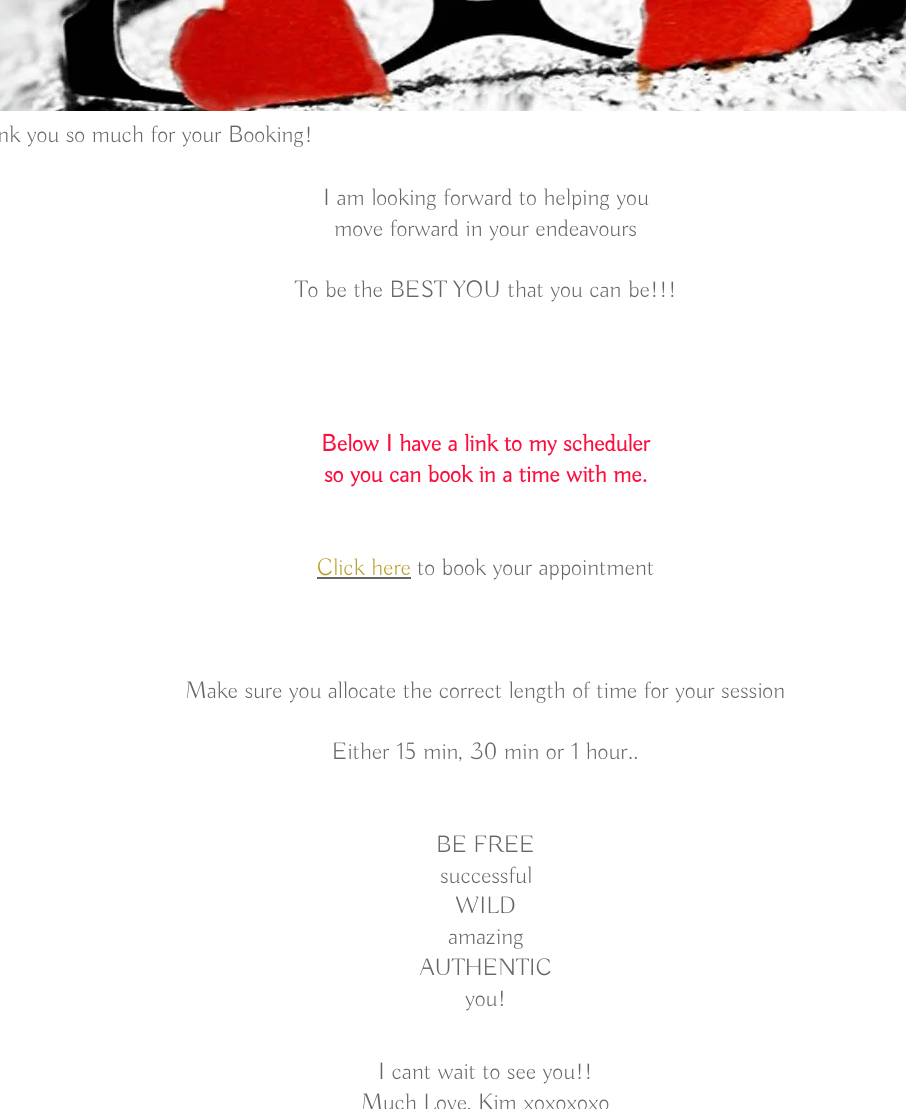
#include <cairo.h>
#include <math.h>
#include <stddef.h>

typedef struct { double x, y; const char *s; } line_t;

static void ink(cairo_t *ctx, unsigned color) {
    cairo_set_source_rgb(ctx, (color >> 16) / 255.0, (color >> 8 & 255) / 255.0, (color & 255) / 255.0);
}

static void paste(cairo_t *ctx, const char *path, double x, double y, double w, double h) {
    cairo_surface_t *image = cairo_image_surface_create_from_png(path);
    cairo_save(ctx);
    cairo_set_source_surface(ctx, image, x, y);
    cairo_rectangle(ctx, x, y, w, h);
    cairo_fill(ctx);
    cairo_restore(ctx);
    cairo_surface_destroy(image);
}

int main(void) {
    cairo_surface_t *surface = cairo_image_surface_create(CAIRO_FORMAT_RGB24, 906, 1109);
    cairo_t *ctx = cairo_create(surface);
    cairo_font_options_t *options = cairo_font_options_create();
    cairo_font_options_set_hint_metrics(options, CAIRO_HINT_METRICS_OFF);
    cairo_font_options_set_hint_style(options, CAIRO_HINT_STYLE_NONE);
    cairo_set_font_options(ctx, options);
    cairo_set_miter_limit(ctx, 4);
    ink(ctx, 0xFFFFFF);
    cairo_paint(ctx);
    paste(ctx, "media/1.png", 0, 0, 906, 111);
    cairo_select_font_face(ctx, "Buda Light", CAIRO_FONT_SLANT_NORMAL, CAIRO_FONT_WEIGHT_NORMAL);
    cairo_set_font_size(ctx, 24);
    ink(ctx, 0x666666);
    {
        static const line_t items[] = {
            {-3, 142, "nk you so much for your Booking!"},
            {323, 205, "I am looking forward to helping you"},
            {334, 236, "move forward in your endeavours"},
            {295, 297, "To be the BEST YOU that you can be!!!"},
        };
        for (size_t i = 0; i < sizeof items / sizeof *items; i++) {
            cairo_move_to(ctx, items[i].x, items[i].y);
            cairo_show_text(ctx, items[i].s);
        }
    }
    cairo_select_font_face(ctx, "Buda", CAIRO_FONT_SLANT_NORMAL, CAIRO_FONT_WEIGHT_BOLD);
    ink(ctx, 0xFC0F3E);
    cairo_move_to(ctx, 321, 451);
    cairo_show_text(ctx, "Below I have a link to my scheduler");
    cairo_move_to(ctx, 324, 482);
    cairo_show_text(ctx, "so you can book in a time with me.");
    cairo_select_font_face(ctx, "Buda Light", CAIRO_FONT_SLANT_NORMAL, CAIRO_FONT_WEIGHT_NORMAL);
    ink(ctx, 0xB79C25);
    cairo_move_to(ctx, 317, 575);
    cairo_show_text(ctx, "Click here");
    ink(ctx, 0x666666);
    cairo_rectangle(ctx, 317, 577, 94, 2);
    cairo_fill(ctx);
    {
        static const line_t items[] = {
            {417, 575, "to book your appointment"},
            {185, 698, "Make sure you allocate the correct length of time for your session"},
            {332, 759, "Either 15 min, 30 min or 1 hour.."},
            {436, 852, "BE FREE"},
            {440, 883, "successful"},
            {455, 913, "WILD"},
            {448, 944, "amazing"},
            {420, 975, "AUTHENTIC"},
            {465, 1006, "you!"},
            {378, 1079, "I cant wait to see you!!"},
            {361, 1110, "Much Love, Kim xoxoxoxo"},
        };
        for (size_t i = 0; i < sizeof items / sizeof *items; i++) {
            cairo_move_to(ctx, items[i].x, items[i].y);
            cairo_show_text(ctx, items[i].s);
        }
    }
    cairo_surface_write_to_png(surface, "image.png");
    cairo_font_options_destroy(options);
    cairo_destroy(ctx);
    cairo_surface_destroy(surface);
    return 0;
}
